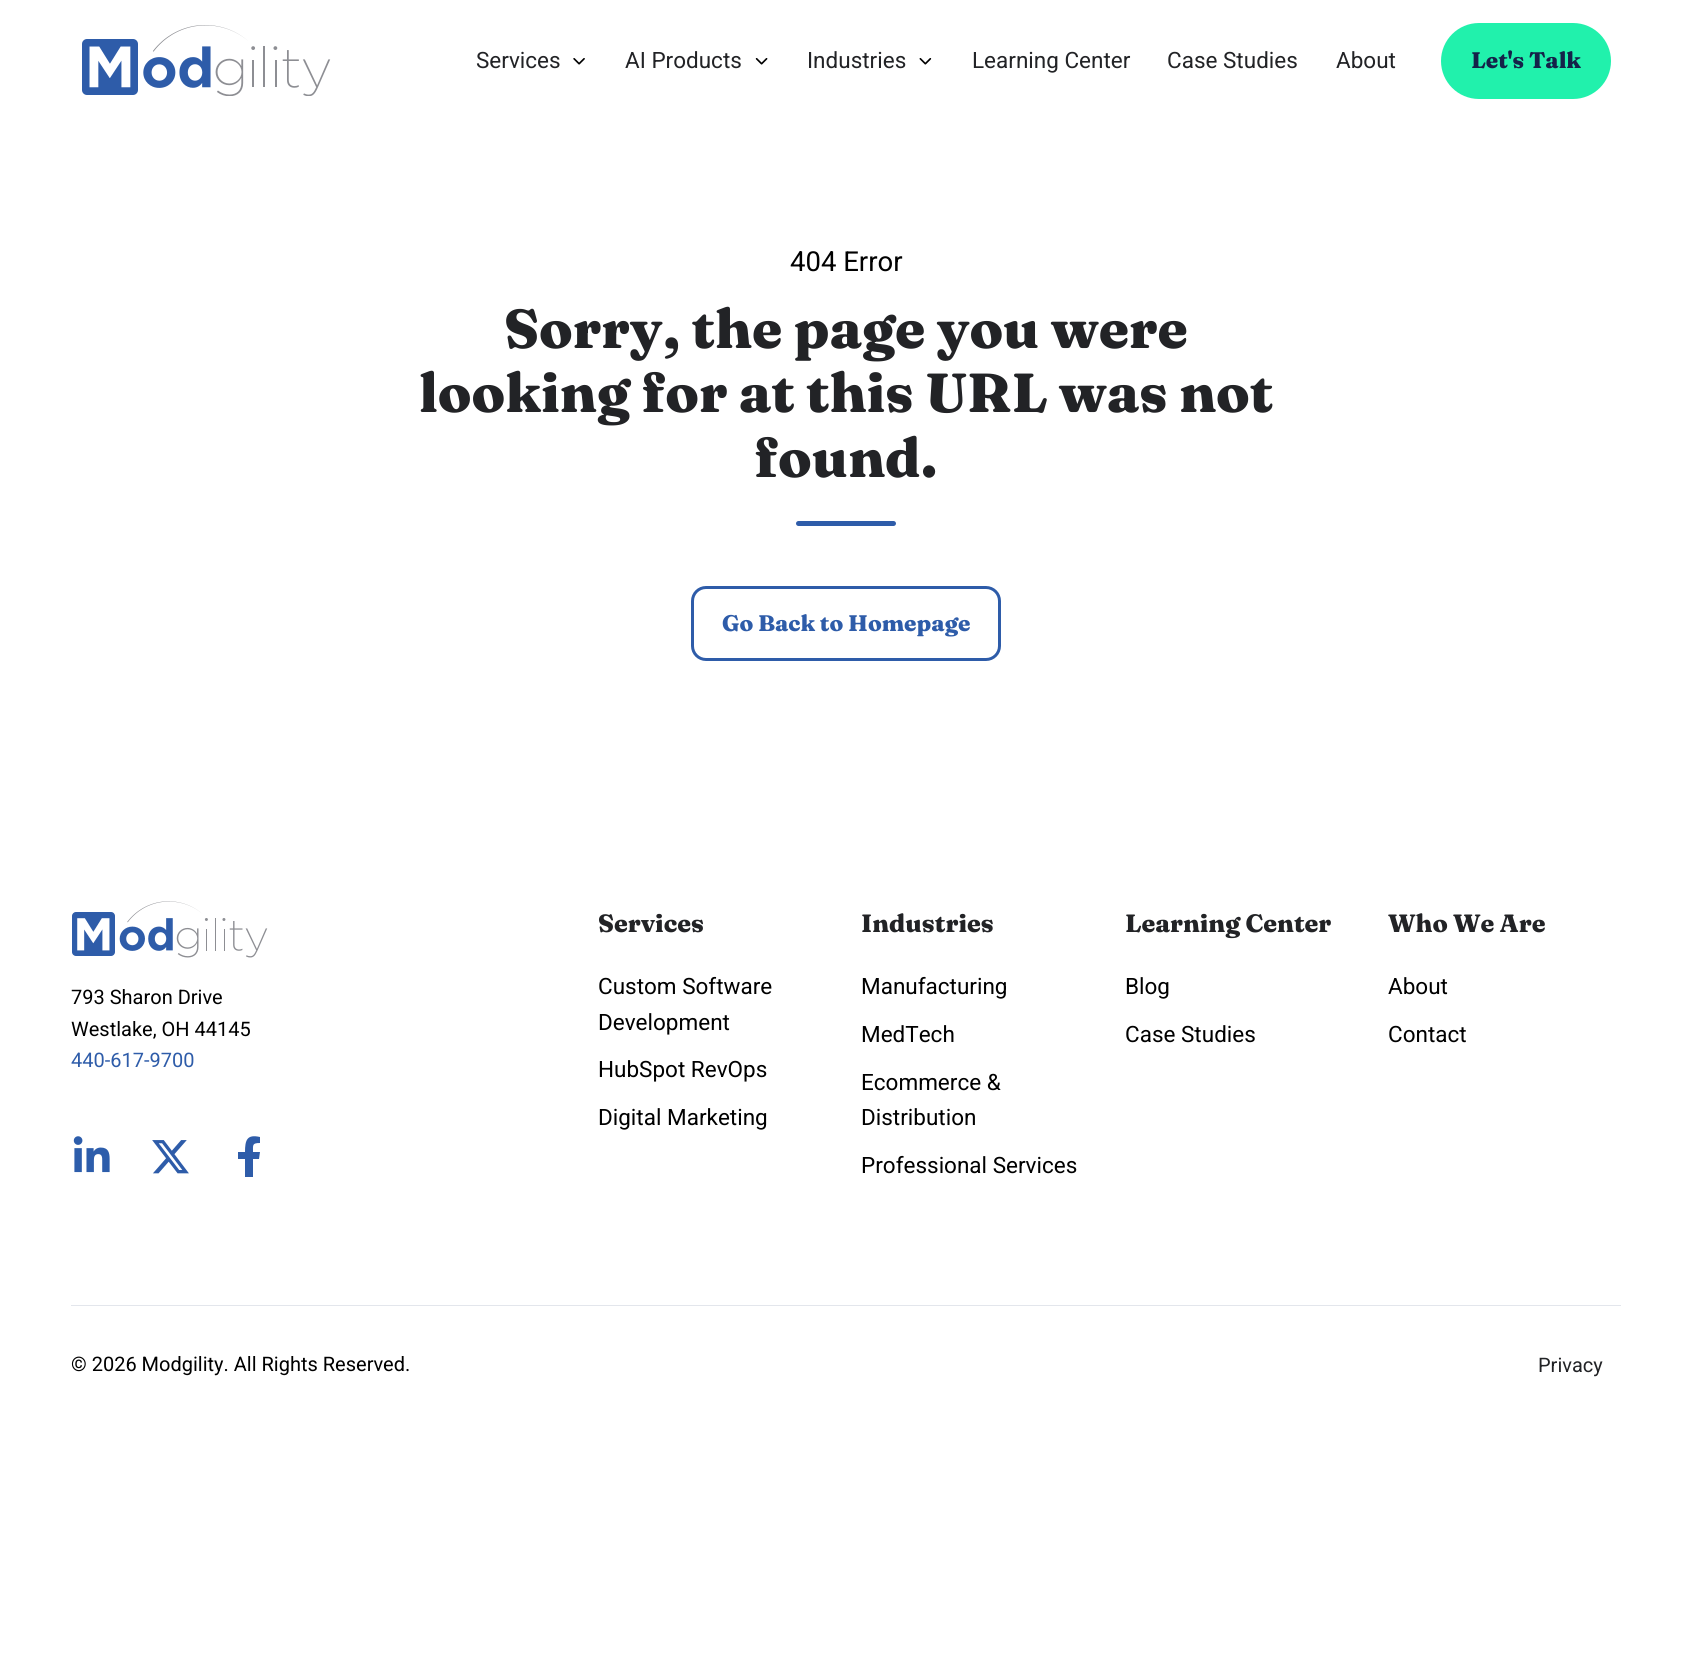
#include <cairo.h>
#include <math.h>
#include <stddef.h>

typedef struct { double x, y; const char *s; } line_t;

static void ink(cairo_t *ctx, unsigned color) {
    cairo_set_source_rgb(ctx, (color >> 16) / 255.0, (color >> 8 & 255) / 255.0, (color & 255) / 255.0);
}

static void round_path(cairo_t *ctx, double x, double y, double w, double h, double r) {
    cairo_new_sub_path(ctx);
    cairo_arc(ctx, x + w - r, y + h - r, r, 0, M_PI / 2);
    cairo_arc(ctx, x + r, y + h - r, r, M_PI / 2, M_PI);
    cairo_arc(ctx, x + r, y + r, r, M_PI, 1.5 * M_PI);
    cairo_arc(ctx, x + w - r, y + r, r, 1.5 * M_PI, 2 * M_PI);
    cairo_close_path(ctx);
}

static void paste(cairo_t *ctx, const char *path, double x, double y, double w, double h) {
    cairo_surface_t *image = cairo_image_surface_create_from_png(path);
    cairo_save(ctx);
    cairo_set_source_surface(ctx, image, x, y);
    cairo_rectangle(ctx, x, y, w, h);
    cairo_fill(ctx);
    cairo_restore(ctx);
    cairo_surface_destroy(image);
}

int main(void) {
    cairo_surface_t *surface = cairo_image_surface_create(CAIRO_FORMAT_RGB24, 1692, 1664);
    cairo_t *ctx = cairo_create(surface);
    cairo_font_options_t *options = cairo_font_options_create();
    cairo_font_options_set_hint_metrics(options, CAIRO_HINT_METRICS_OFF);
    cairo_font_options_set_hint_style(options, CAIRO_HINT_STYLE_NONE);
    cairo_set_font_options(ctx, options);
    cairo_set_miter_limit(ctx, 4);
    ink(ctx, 0xFFFFFF);
    cairo_paint(ctx);
    paste(ctx, "media/1.png", 82, 25, 249, 71);
    paste(ctx, "media/2.png", 573, 58, 12, 7);
    cairo_select_font_face(ctx, "Roboto", CAIRO_FONT_SLANT_NORMAL, CAIRO_FONT_WEIGHT_NORMAL);
    cairo_set_font_size(ctx, 22.5);
    ink(ctx, 0x222326);
    cairo_move_to(ctx, 476, 68);
    cairo_show_text(ctx, "Services");
    paste(ctx, "media/3.png", 755, 58, 13, 7);
    cairo_move_to(ctx, 625, 68);
    cairo_show_text(ctx, "AI Products");
    paste(ctx, "media/4.png", 919, 58, 13, 7);
    {
        static const line_t items[] = {
            {807, 68, "Industries"},
            {972, 68, "Learning Center"},
            {1167, 68, "Case Studies"},
            {1336, 68, "About"},
        };
        for (size_t i = 0; i < sizeof items / sizeof *items; i++) {
            cairo_move_to(ctx, items[i].x, items[i].y);
            cairo_show_text(ctx, items[i].s);
        }
    }
    ink(ctx, 0x21F1AC);
    round_path(ctx, 1441, 23, 170, 76, 38);
    cairo_fill(ctx);
    cairo_select_font_face(ctx, "Fraunces ExtraBold", CAIRO_FONT_SLANT_NORMAL, CAIRO_FONT_WEIGHT_NORMAL);
    ink(ctx, 0x142249);
    cairo_move_to(ctx, 1471, 68);
    cairo_show_text(ctx, "Let's Talk");
    cairo_select_font_face(ctx, "Roboto", CAIRO_FONT_SLANT_NORMAL, CAIRO_FONT_WEIGHT_NORMAL);
    cairo_set_font_size(ctx, 27.5);
    ink(ctx, 0x000000);
    cairo_move_to(ctx, 790, 271);
    cairo_show_text(ctx, "404 Error");
    cairo_select_font_face(ctx, "Fraunces ExtraBold", CAIRO_FONT_SLANT_NORMAL, CAIRO_FONT_WEIGHT_NORMAL);
    cairo_set_font_size(ctx, 54.9);
    ink(ctx, 0x222326);
    {
        static const line_t items[] = {
            {504, 348, "Sorry, the page you were"},
            {419, 412, "looking for at this URL was not"},
            {754, 477, "found."},
        };
        for (size_t i = 0; i < sizeof items / sizeof *items; i++) {
            cairo_move_to(ctx, items[i].x, items[i].y);
            cairo_show_text(ctx, items[i].s);
        }
    }
    ink(ctx, 0x2E5CA9);
    round_path(ctx, 796, 521, 100, 5, 2.5);
    cairo_fill(ctx);
    round_path(ctx, 692.5, 587.5, 307, 72, 13.5);
    cairo_set_line_width(ctx, 3);
    cairo_stroke(ctx);
    cairo_set_font_size(ctx, 22.5);
    cairo_move_to(ctx, 722, 631);
    cairo_show_text(ctx, "Go Back to Homepage");
    paste(ctx, "media/5.png", 72, 901, 196, 57);
    cairo_select_font_face(ctx, "Roboto", CAIRO_FONT_SLANT_NORMAL, CAIRO_FONT_WEIGHT_NORMAL);
    cairo_set_font_size(ctx, 20);
    ink(ctx, 0x000000);
    cairo_move_to(ctx, 71, 1004);
    cairo_show_text(ctx, "793 Sharon Drive");
    cairo_move_to(ctx, 71, 1036);
    cairo_show_text(ctx, "Westlake, OH 44145");
    ink(ctx, 0x2E5CA9);
    cairo_move_to(ctx, 71, 1067);
    cairo_show_text(ctx, "440-617-9700");
    paste(ctx, "media/6.png", 73, 1136, 37, 37);
    paste(ctx, "media/7.png", 152, 1140, 37, 34);
    cairo_new_path(ctx);
    cairo_move_to(ctx, 259, 1159);
    cairo_line_to(ctx, 260, 1152);
    cairo_line_to(ctx, 253, 1152);
    cairo_curve_to(ctx, 253, 1145, 252, 1143, 260, 1143);
    cairo_line_to(ctx, 260, 1137);
    cairo_curve_to(ctx, 247, 1134, 245, 1140, 245, 1152);
    cairo_line_to(ctx, 238, 1152);
    cairo_line_to(ctx, 238, 1159);
    cairo_line_to(ctx, 245, 1159);
    cairo_line_to(ctx, 245, 1177);
    cairo_line_to(ctx, 253, 1177);
    cairo_line_to(ctx, 253, 1159);
    cairo_close_path(ctx);
    cairo_fill(ctx);
    cairo_select_font_face(ctx, "Fraunces ExtraBold", CAIRO_FONT_SLANT_NORMAL, CAIRO_FONT_WEIGHT_NORMAL);
    cairo_set_font_size(ctx, 25);
    ink(ctx, 0x222326);
    cairo_move_to(ctx, 598, 932);
    cairo_show_text(ctx, "Services");
    cairo_select_font_face(ctx, "Roboto", CAIRO_FONT_SLANT_NORMAL, CAIRO_FONT_WEIGHT_NORMAL);
    cairo_set_font_size(ctx, 22.5);
    ink(ctx, 0x000000);
    {
        static const line_t items[] = {
            {598, 994, "Custom Software"},
            {598, 1030, "Development"},
            {598, 1077, "HubSpot RevOps"},
            {598, 1125, "Digital Marketing"},
        };
        for (size_t i = 0; i < sizeof items / sizeof *items; i++) {
            cairo_move_to(ctx, items[i].x, items[i].y);
            cairo_show_text(ctx, items[i].s);
        }
    }
    cairo_select_font_face(ctx, "Fraunces ExtraBold", CAIRO_FONT_SLANT_NORMAL, CAIRO_FONT_WEIGHT_NORMAL);
    cairo_set_font_size(ctx, 25);
    ink(ctx, 0x222326);
    cairo_move_to(ctx, 861, 932);
    cairo_show_text(ctx, "Industries");
    cairo_select_font_face(ctx, "Roboto", CAIRO_FONT_SLANT_NORMAL, CAIRO_FONT_WEIGHT_NORMAL);
    cairo_set_font_size(ctx, 22.5);
    ink(ctx, 0x000000);
    {
        static const line_t items[] = {
            {861, 994, "Manufacturing"},
            {861, 1042, "MedTech"},
            {861, 1090, "Ecommerce &"},
            {861, 1125, "Distribution"},
            {861, 1173, "Professional Services"},
        };
        for (size_t i = 0; i < sizeof items / sizeof *items; i++) {
            cairo_move_to(ctx, items[i].x, items[i].y);
            cairo_show_text(ctx, items[i].s);
        }
    }
    cairo_select_font_face(ctx, "Fraunces ExtraBold", CAIRO_FONT_SLANT_NORMAL, CAIRO_FONT_WEIGHT_NORMAL);
    cairo_set_font_size(ctx, 25);
    ink(ctx, 0x222326);
    cairo_move_to(ctx, 1125, 932);
    cairo_show_text(ctx, "Learning Center");
    cairo_select_font_face(ctx, "Roboto", CAIRO_FONT_SLANT_NORMAL, CAIRO_FONT_WEIGHT_NORMAL);
    cairo_set_font_size(ctx, 22.5);
    ink(ctx, 0x000000);
    cairo_move_to(ctx, 1125, 994);
    cairo_show_text(ctx, "Blog");
    cairo_move_to(ctx, 1125, 1042);
    cairo_show_text(ctx, "Case Studies");
    cairo_select_font_face(ctx, "Fraunces ExtraBold", CAIRO_FONT_SLANT_NORMAL, CAIRO_FONT_WEIGHT_NORMAL);
    cairo_set_font_size(ctx, 25);
    ink(ctx, 0x222326);
    cairo_move_to(ctx, 1388, 932);
    cairo_show_text(ctx, "Who We Are");
    cairo_select_font_face(ctx, "Roboto", CAIRO_FONT_SLANT_NORMAL, CAIRO_FONT_WEIGHT_NORMAL);
    cairo_set_font_size(ctx, 22.5);
    ink(ctx, 0x000000);
    cairo_move_to(ctx, 1388, 994);
    cairo_show_text(ctx, "About");
    cairo_move_to(ctx, 1388, 1042);
    cairo_show_text(ctx, "Contact");
    ink(ctx, 0xE3E6EC);
    cairo_rectangle(ctx, 71, 1305, 1550, 1);
    cairo_fill(ctx);
    cairo_set_font_size(ctx, 20);
    ink(ctx, 0x000000);
    cairo_move_to(ctx, 71, 1371);
    cairo_show_text(ctx, "© 2026 Modgility. All Rights Reserved.");
    ink(ctx, 0x222326);
    cairo_move_to(ctx, 1538, 1372);
    cairo_show_text(ctx, "Privacy");
    cairo_surface_write_to_png(surface, "image.png");
    cairo_font_options_destroy(options);
    cairo_destroy(ctx);
    cairo_surface_destroy(surface);
    return 0;
}
